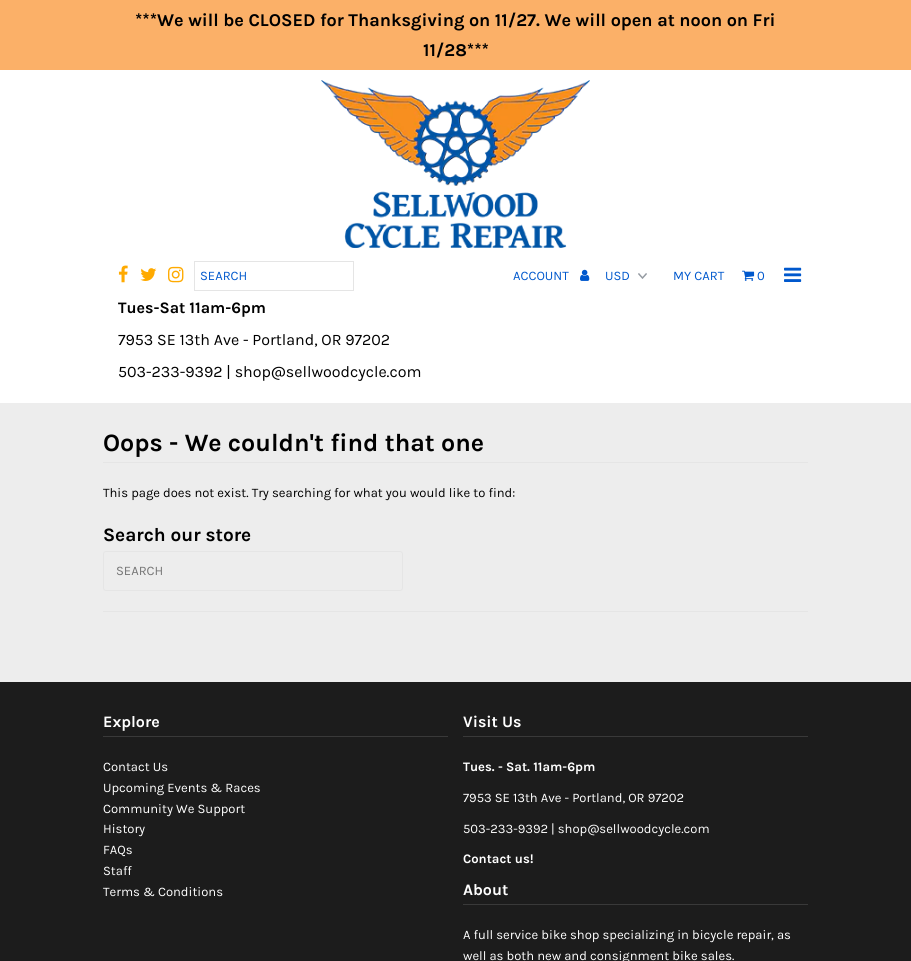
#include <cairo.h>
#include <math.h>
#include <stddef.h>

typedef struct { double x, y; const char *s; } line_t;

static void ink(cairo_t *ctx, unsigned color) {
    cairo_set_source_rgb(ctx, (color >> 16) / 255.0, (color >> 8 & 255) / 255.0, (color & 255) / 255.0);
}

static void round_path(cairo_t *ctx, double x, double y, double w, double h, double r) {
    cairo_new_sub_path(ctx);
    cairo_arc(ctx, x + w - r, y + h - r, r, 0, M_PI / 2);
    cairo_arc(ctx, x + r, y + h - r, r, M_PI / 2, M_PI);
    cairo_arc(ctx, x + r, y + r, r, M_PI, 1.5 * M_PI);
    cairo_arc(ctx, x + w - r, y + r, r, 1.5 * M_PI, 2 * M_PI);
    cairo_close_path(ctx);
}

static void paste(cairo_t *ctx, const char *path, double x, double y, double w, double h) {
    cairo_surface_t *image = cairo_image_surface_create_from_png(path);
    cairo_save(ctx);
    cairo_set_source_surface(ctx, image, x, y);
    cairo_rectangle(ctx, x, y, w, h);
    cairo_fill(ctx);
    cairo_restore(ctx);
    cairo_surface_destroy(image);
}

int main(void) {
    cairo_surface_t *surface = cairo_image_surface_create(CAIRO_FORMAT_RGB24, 911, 961);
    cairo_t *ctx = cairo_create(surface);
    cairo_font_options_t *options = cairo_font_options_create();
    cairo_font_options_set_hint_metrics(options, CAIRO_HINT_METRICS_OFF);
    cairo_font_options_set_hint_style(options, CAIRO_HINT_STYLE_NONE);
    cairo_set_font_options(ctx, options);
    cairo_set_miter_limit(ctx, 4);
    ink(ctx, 0xEDEDED);
    cairo_paint(ctx);
    ink(ctx, 0xFBB068);
    cairo_rectangle(ctx, 0, 0, 911, 70);
    cairo_fill(ctx);
    cairo_select_font_face(ctx, "Karla", CAIRO_FONT_SLANT_NORMAL, CAIRO_FONT_WEIGHT_BOLD);
    cairo_set_font_size(ctx, 18);
    ink(ctx, 0x000000);
    cairo_move_to(ctx, 135, 26);
    cairo_show_text(ctx, "***We will be CLOSED for Thanksgiving on 11/27. We will open at noon on Fri");
    cairo_move_to(ctx, 423, 56);
    cairo_show_text(ctx, "11/28***");
    ink(ctx, 0xFFFFFF);
    cairo_rectangle(ctx, 0, 70, 911, 333);
    cairo_fill(ctx);
    paste(ctx, "media/1.png", 321, 80, 269, 168);
    paste(ctx, "media/2.png", 118, 265, 10, 18);
    paste(ctx, "media/3.png", 140, 268, 17, 13);
    paste(ctx, "media/4.png", 168, 266, 16, 17);
    cairo_rectangle(ctx, 194.5, 261.5, 159, 29);
    ink(ctx, 0xE5E5E5);
    cairo_set_line_width(ctx, 1);
    cairo_stroke(ctx);
    cairo_select_font_face(ctx, "Karla", CAIRO_FONT_SLANT_NORMAL, CAIRO_FONT_WEIGHT_NORMAL);
    cairo_set_font_size(ctx, 13);
    ink(ctx, 0x0058CD);
    cairo_move_to(ctx, 200, 280);
    cairo_show_text(ctx, "SEARCH");
    cairo_select_font_face(ctx, "Karla", CAIRO_FONT_SLANT_NORMAL, CAIRO_FONT_WEIGHT_BOLD);
    cairo_set_font_size(ctx, 16);
    ink(ctx, 0x000000);
    cairo_move_to(ctx, 118, 313);
    cairo_show_text(ctx, "Tues-Sat 11am-6pm");
    cairo_select_font_face(ctx, "Karla", CAIRO_FONT_SLANT_NORMAL, CAIRO_FONT_WEIGHT_NORMAL);
    cairo_move_to(ctx, 118, 345);
    cairo_show_text(ctx, "7953 SE 13th Ave - Portland, OR 97202");
    cairo_move_to(ctx, 118, 377);
    cairo_show_text(ctx, "503-233-9392 | shop@sellwoodcycle.com");
    cairo_set_font_size(ctx, 13);
    ink(ctx, 0x0058CD);
    cairo_move_to(ctx, 513, 280);
    cairo_show_text(ctx, "ACCOUNT");
    paste(ctx, "media/5.png", 580, 269, 10, 12);
    paste(ctx, "media/6.png", 638, 273, 9, 6);
    cairo_move_to(ctx, 605, 280);
    cairo_show_text(ctx, "USD");
    cairo_move_to(ctx, 673, 280);
    cairo_show_text(ctx, "MY CART");
    paste(ctx, "media/7.png", 742, 270, 13, 11);
    cairo_move_to(ctx, 757, 280);
    cairo_show_text(ctx, "0");
    paste(ctx, "media/8.png", 784, 267, 18, 15);
    ink(ctx, 0xE5E5E5);
    cairo_rectangle(ctx, 103, 462, 705, 1);
    cairo_fill(ctx);
    cairo_select_font_face(ctx, "Karla", CAIRO_FONT_SLANT_NORMAL, CAIRO_FONT_WEIGHT_BOLD);
    cairo_set_font_size(ctx, 25);
    ink(ctx, 0x000000);
    cairo_move_to(ctx, 103, 451);
    cairo_show_text(ctx, "Oops - We couldn't find that one");
    cairo_select_font_face(ctx, "Karla", CAIRO_FONT_SLANT_NORMAL, CAIRO_FONT_WEIGHT_NORMAL);
    cairo_set_font_size(ctx, 13);
    cairo_move_to(ctx, 103, 497);
    cairo_show_text(ctx, "This page does not exist. Try searching for what you would like to find:");
    ink(ctx, 0xE5E5E5);
    cairo_rectangle(ctx, 103, 611, 705, 1);
    cairo_fill(ctx);
    cairo_select_font_face(ctx, "Karla", CAIRO_FONT_SLANT_NORMAL, CAIRO_FONT_WEIGHT_BOLD);
    cairo_set_font_size(ctx, 19);
    ink(ctx, 0x000000);
    cairo_move_to(ctx, 103, 541);
    cairo_show_text(ctx, "Search our store");
    round_path(ctx, 103.5, 551.5, 299, 39, 2.5);
    ink(ctx, 0xE5E5E5);
    cairo_stroke(ctx);
    cairo_select_font_face(ctx, "Karla", CAIRO_FONT_SLANT_NORMAL, CAIRO_FONT_WEIGHT_NORMAL);
    cairo_set_font_size(ctx, 13);
    ink(ctx, 0x757575);
    cairo_move_to(ctx, 116, 575);
    cairo_show_text(ctx, "SEARCH");
    ink(ctx, 0x1C1C1C);
    cairo_rectangle(ctx, 0, 682, 911, 279);
    cairo_fill(ctx);
    ink(ctx, 0x393939);
    cairo_rectangle(ctx, 103, 736, 345, 1);
    cairo_fill(ctx);
    cairo_select_font_face(ctx, "Karla", CAIRO_FONT_SLANT_NORMAL, CAIRO_FONT_WEIGHT_BOLD);
    cairo_set_font_size(ctx, 16);
    ink(ctx, 0xFFFFFF);
    cairo_move_to(ctx, 103, 727);
    cairo_show_text(ctx, "Explore");
    cairo_select_font_face(ctx, "Karla", CAIRO_FONT_SLANT_NORMAL, CAIRO_FONT_WEIGHT_NORMAL);
    cairo_set_font_size(ctx, 13);
    {
        static const line_t items[] = {
            {103, 771, "Contact Us"},
            {103, 792, "Upcoming Events & Races"},
            {103, 813, "Community We Support"},
            {103, 833, "History"},
            {103, 854, "FAQs"},
            {103, 875, "Staff"},
            {103, 896, "Terms & Conditions"},
        };
        for (size_t i = 0; i < sizeof items / sizeof *items; i++) {
            cairo_move_to(ctx, items[i].x, items[i].y);
            cairo_show_text(ctx, items[i].s);
        }
    }
    ink(ctx, 0x393939);
    cairo_rectangle(ctx, 463, 736, 345, 1);
    cairo_fill(ctx);
    cairo_select_font_face(ctx, "Karla", CAIRO_FONT_SLANT_NORMAL, CAIRO_FONT_WEIGHT_BOLD);
    cairo_set_font_size(ctx, 16);
    ink(ctx, 0xFFFFFF);
    cairo_move_to(ctx, 463, 727);
    cairo_show_text(ctx, "Visit Us");
    cairo_set_font_size(ctx, 13);
    cairo_move_to(ctx, 463, 771);
    cairo_show_text(ctx, "Tues. - Sat. 11am-6pm");
    cairo_select_font_face(ctx, "Karla", CAIRO_FONT_SLANT_NORMAL, CAIRO_FONT_WEIGHT_NORMAL);
    cairo_move_to(ctx, 463, 802);
    cairo_show_text(ctx, "7953 SE 13th Ave - Portland, OR 97202");
    cairo_move_to(ctx, 463, 833);
    cairo_show_text(ctx, "503-233-9392 | shop@sellwoodcycle.com");
    cairo_select_font_face(ctx, "Karla", CAIRO_FONT_SLANT_NORMAL, CAIRO_FONT_WEIGHT_BOLD);
    cairo_move_to(ctx, 463, 863);
    cairo_show_text(ctx, "Contact us!");
    ink(ctx, 0x393939);
    cairo_rectangle(ctx, 463, 904, 345, 1);
    cairo_fill(ctx);
    cairo_set_font_size(ctx, 16);
    ink(ctx, 0xFFFFFF);
    cairo_move_to(ctx, 463, 895);
    cairo_show_text(ctx, "About");
    cairo_select_font_face(ctx, "Karla", CAIRO_FONT_SLANT_NORMAL, CAIRO_FONT_WEIGHT_NORMAL);
    cairo_set_font_size(ctx, 13);
    cairo_move_to(ctx, 463, 939);
    cairo_show_text(ctx, "A full service bike shop specializing in bicycle repair, as");
    cairo_move_to(ctx, 463, 960);
    cairo_show_text(ctx, "well as both new and consignment bike sales.");
    cairo_surface_write_to_png(surface, "image.png");
    cairo_font_options_destroy(options);
    cairo_destroy(ctx);
    cairo_surface_destroy(surface);
    return 0;
}
